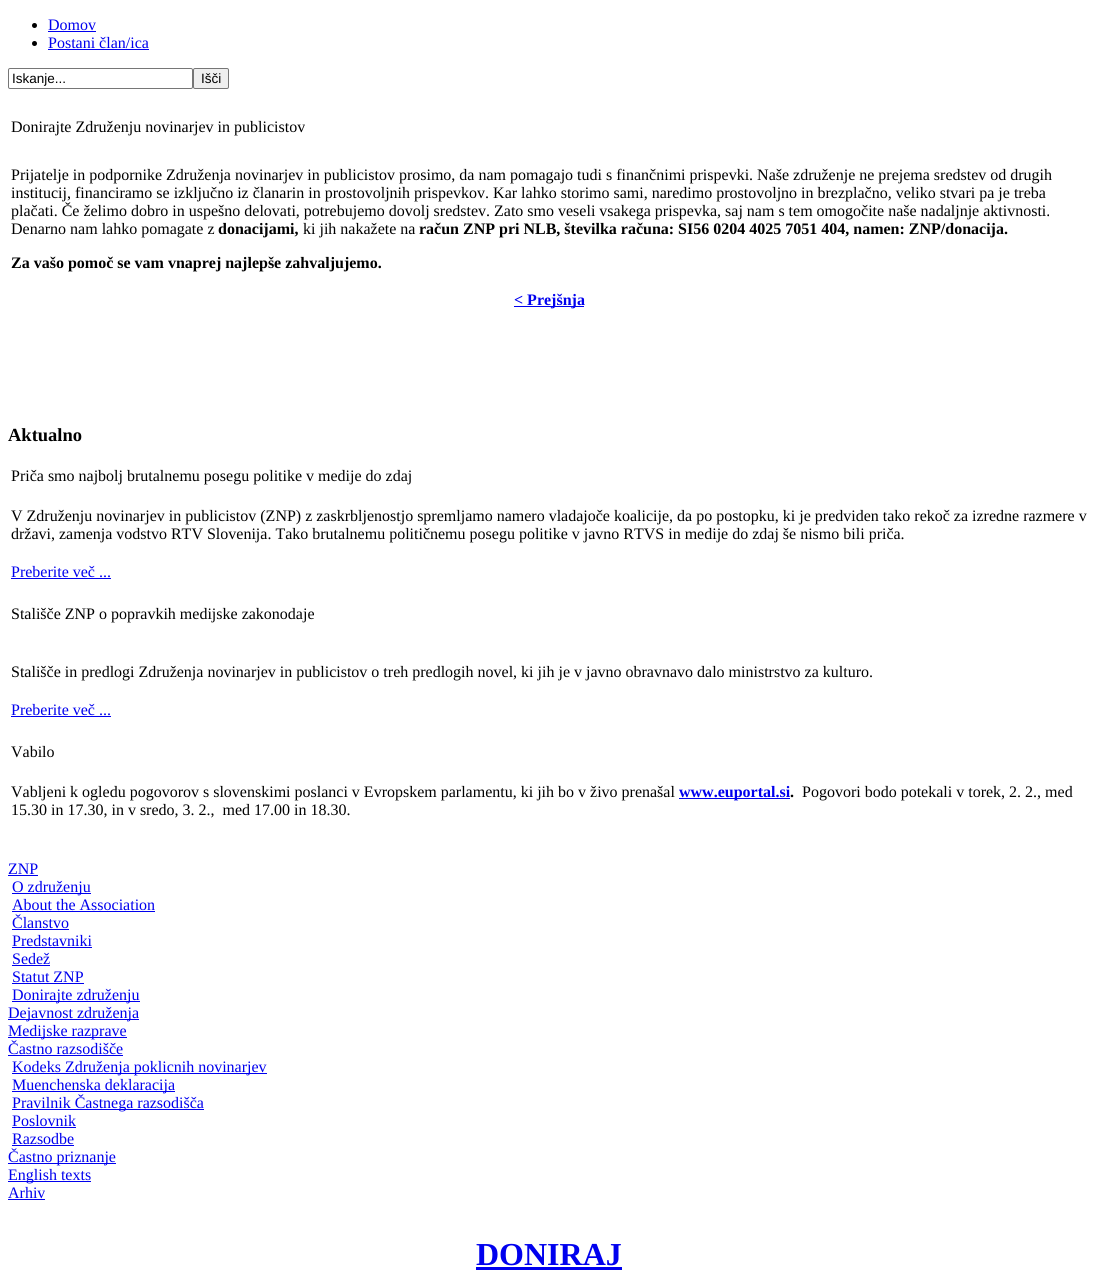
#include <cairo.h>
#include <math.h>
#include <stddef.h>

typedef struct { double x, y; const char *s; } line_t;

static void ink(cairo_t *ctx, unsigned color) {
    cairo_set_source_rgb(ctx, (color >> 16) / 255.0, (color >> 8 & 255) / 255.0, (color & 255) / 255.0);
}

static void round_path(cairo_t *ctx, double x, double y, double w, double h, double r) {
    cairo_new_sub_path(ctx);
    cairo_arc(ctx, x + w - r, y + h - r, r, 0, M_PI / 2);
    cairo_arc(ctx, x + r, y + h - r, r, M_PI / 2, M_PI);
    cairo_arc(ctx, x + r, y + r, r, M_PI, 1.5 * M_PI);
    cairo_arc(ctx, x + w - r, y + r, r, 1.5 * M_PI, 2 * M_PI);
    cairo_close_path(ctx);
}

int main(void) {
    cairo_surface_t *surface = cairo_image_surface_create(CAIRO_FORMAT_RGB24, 1098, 1280);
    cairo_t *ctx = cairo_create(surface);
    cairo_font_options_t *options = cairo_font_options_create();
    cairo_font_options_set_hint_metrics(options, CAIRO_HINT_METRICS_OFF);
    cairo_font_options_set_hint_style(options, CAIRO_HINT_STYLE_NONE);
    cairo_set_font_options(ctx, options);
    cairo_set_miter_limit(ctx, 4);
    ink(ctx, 0xFFFFFF);
    cairo_paint(ctx);
    ink(ctx, 0x000000);
    cairo_arc(ctx, 34.5, 25.5, 2.5, 0, 2 * M_PI);
    cairo_fill(ctx);
    cairo_select_font_face(ctx, "Liberation Serif", CAIRO_FONT_SLANT_NORMAL, CAIRO_FONT_WEIGHT_NORMAL);
    cairo_set_font_size(ctx, 16);
    ink(ctx, 0x0000EE);
    cairo_move_to(ctx, 48, 30);
    cairo_show_text(ctx, "Domov");
    cairo_rectangle(ctx, 48, 31, 48, 1);
    cairo_fill(ctx);
    ink(ctx, 0x000000);
    cairo_arc(ctx, 34.5, 43.5, 2.5, 0, 2 * M_PI);
    cairo_fill(ctx);
    ink(ctx, 0x0000EE);
    cairo_move_to(ctx, 48, 48);
    cairo_show_text(ctx, "Postani član/ica");
    cairo_rectangle(ctx, 48, 49, 101, 1);
    cairo_fill(ctx);
    round_path(ctx, 8.5, 68.5, 184, 20, 1.5);
    ink(ctx, 0x767676);
    cairo_set_line_width(ctx, 1);
    cairo_stroke(ctx);
    cairo_select_font_face(ctx, "Liberation Sans", CAIRO_FONT_SLANT_NORMAL, CAIRO_FONT_WEIGHT_NORMAL);
    cairo_set_font_size(ctx, 13.5);
    ink(ctx, 0x000000);
    cairo_move_to(ctx, 12, 83);
    cairo_show_text(ctx, "Iskanje...");
    ink(ctx, 0xEFEFEF);
    round_path(ctx, 193.5, 68.5, 35, 20, 1.5);
    cairo_fill_preserve(ctx);
    ink(ctx, 0x767676);
    cairo_stroke(ctx);
    ink(ctx, 0x000000);
    cairo_move_to(ctx, 201, 83);
    cairo_show_text(ctx, "Išči");
    cairo_select_font_face(ctx, "Liberation Serif", CAIRO_FONT_SLANT_NORMAL, CAIRO_FONT_WEIGHT_NORMAL);
    cairo_set_font_size(ctx, 16);
    {
        static const line_t items[] = {
            {11, 132, "Donirajte Združenju novinarjev in publicistov"},
            {11, 180, "Prijatelje in podpornike Združenja novinarjev in publicistov prosimo, da nam pomagajo tudi s finančnimi prispevki. Naše združenje ne prejema sredstev od drugih"},
            {11, 198, "institucij, financiramo se izključno iz članarin in prostovoljnih prispevkov. Kar lahko storimo sami, naredimo prostovoljno in brezplačno, veliko stvari pa je treba"},
            {11, 216, "plačati. Če želimo dobro in uspešno delovati, potrebujemo dovolj sredstev. Zato smo veseli vsakega prispevka, saj nam s tem omogočite naše nadaljnje aktivnosti."},
            {11, 234, "Denarno nam lahko pomagate z"},
        };
        for (size_t i = 0; i < sizeof items / sizeof *items; i++) {
            cairo_move_to(ctx, items[i].x, items[i].y);
            cairo_show_text(ctx, items[i].s);
        }
    }
    cairo_select_font_face(ctx, "Liberation Serif", CAIRO_FONT_SLANT_NORMAL, CAIRO_FONT_WEIGHT_BOLD);
    cairo_move_to(ctx, 218, 234);
    cairo_show_text(ctx, "donacijami,");
    cairo_select_font_face(ctx, "Liberation Serif", CAIRO_FONT_SLANT_NORMAL, CAIRO_FONT_WEIGHT_NORMAL);
    cairo_move_to(ctx, 303, 234);
    cairo_show_text(ctx, "ki jih nakažete na");
    cairo_select_font_face(ctx, "Liberation Serif", CAIRO_FONT_SLANT_NORMAL, CAIRO_FONT_WEIGHT_BOLD);
    cairo_move_to(ctx, 419, 234);
    cairo_show_text(ctx, "račun ZNP pri NLB, številka računa: SI56 0204 4025 7051 404, namen: ZNP/donacija.");
    cairo_move_to(ctx, 11, 268);
    cairo_show_text(ctx, "Za vašo pomoč se vam vnaprej najlepše zahvaljujemo.");
    ink(ctx, 0x0000EE);
    cairo_rectangle(ctx, 514, 306, 70, 1);
    cairo_fill(ctx);
    cairo_move_to(ctx, 514, 305);
    cairo_show_text(ctx, "< Prejšnja");
    cairo_set_font_size(ctx, 18.5);
    ink(ctx, 0x000000);
    cairo_move_to(ctx, 8, 441);
    cairo_show_text(ctx, "Aktualno");
    cairo_select_font_face(ctx, "Liberation Serif", CAIRO_FONT_SLANT_NORMAL, CAIRO_FONT_WEIGHT_NORMAL);
    cairo_set_font_size(ctx, 16);
    {
        static const line_t items[] = {
            {11, 481, "Priča smo najbolj brutalnemu posegu politike v medije do zdaj"},
            {11, 521, "V Združenju novinarjev in publicistov (ZNP) z zaskrbljenostjo spremljamo namero vladajoče koalicije, da po postopku, ki je predviden tako rekoč za izredne razmere v"},
            {11, 539, "državi, zamenja vodstvo RTV Slovenija. Tako brutalnemu političnemu posegu politike v javno RTVS in medije do zdaj še nismo bili priča."},
        };
        for (size_t i = 0; i < sizeof items / sizeof *items; i++) {
            cairo_move_to(ctx, items[i].x, items[i].y);
            cairo_show_text(ctx, items[i].s);
        }
    }
    ink(ctx, 0x0000EE);
    cairo_move_to(ctx, 11, 577);
    cairo_show_text(ctx, "Preberite več ...");
    cairo_rectangle(ctx, 11, 578, 100, 1);
    cairo_fill(ctx);
    ink(ctx, 0x000000);
    cairo_move_to(ctx, 11, 619);
    cairo_show_text(ctx, "Stališče ZNP o popravkih medijske zakonodaje");
    cairo_move_to(ctx, 11, 677);
    cairo_show_text(ctx, "Stališče in predlogi Združenja novinarjev in publicistov o treh predlogih novel, ki jih je v javno obravnavo dalo ministrstvo za kulturo.");
    ink(ctx, 0x0000EE);
    cairo_move_to(ctx, 11, 715);
    cairo_show_text(ctx, "Preberite več ...");
    cairo_rectangle(ctx, 11, 716, 100, 1);
    cairo_fill(ctx);
    ink(ctx, 0x000000);
    cairo_move_to(ctx, 11, 757);
    cairo_show_text(ctx, "Vabilo");
    cairo_move_to(ctx, 11, 797);
    cairo_show_text(ctx, "Vabljeni k ogledu pogovorov s slovenskimi poslanci v Evropskem parlamentu, ki jih bo v živo prenašal");
    ink(ctx, 0x0000EE);
    cairo_rectangle(ctx, 679, 798, 111, 1);
    cairo_fill(ctx);
    cairo_select_font_face(ctx, "Liberation Serif", CAIRO_FONT_SLANT_NORMAL, CAIRO_FONT_WEIGHT_BOLD);
    cairo_move_to(ctx, 679, 797);
    cairo_show_text(ctx, "www.euportal.si");
    ink(ctx, 0x000000);
    cairo_move_to(ctx, 790, 797);
    cairo_show_text(ctx, ".");
    cairo_select_font_face(ctx, "Liberation Serif", CAIRO_FONT_SLANT_NORMAL, CAIRO_FONT_WEIGHT_NORMAL);
    cairo_move_to(ctx, 802, 797);
    cairo_show_text(ctx, "Pogovori bodo potekali v torek, 2. 2., med");
    cairo_move_to(ctx, 11, 815);
    cairo_show_text(ctx, "15.30 in 17.30, in v sredo, 3. 2.,  med 17.00 in 18.30.");
    ink(ctx, 0x0000EE);
    cairo_move_to(ctx, 8, 874);
    cairo_show_text(ctx, "ZNP");
    cairo_rectangle(ctx, 8, 875, 30, 1);
    cairo_fill(ctx);
    cairo_rectangle(ctx, 12, 893, 79, 1);
    cairo_fill(ctx);
    cairo_move_to(ctx, 12, 892);
    cairo_show_text(ctx, "O združenju");
    cairo_move_to(ctx, 12, 910);
    cairo_show_text(ctx, "About the Association");
    cairo_rectangle(ctx, 12, 911, 143, 1);
    cairo_fill(ctx);
    cairo_move_to(ctx, 12, 928);
    cairo_show_text(ctx, "Članstvo");
    cairo_rectangle(ctx, 12, 929, 57, 1);
    cairo_fill(ctx);
    cairo_move_to(ctx, 12, 946);
    cairo_show_text(ctx, "Predstavniki");
    cairo_rectangle(ctx, 12, 947, 80, 1);
    cairo_fill(ctx);
    cairo_move_to(ctx, 12, 964);
    cairo_show_text(ctx, "Sedež");
    cairo_rectangle(ctx, 12, 965, 38, 1);
    cairo_fill(ctx);
    cairo_move_to(ctx, 12, 982);
    cairo_show_text(ctx, "Statut ZNP");
    cairo_rectangle(ctx, 12, 983, 72, 1);
    cairo_fill(ctx);
    cairo_rectangle(ctx, 12, 1001, 128, 1);
    cairo_fill(ctx);
    cairo_move_to(ctx, 12, 1000);
    cairo_show_text(ctx, "Donirajte združenju");
    cairo_rectangle(ctx, 8, 1019, 131, 1);
    cairo_fill(ctx);
    cairo_move_to(ctx, 8, 1018);
    cairo_show_text(ctx, "Dejavnost združenja");
    cairo_rectangle(ctx, 8, 1037, 119, 1);
    cairo_fill(ctx);
    cairo_move_to(ctx, 8, 1036);
    cairo_show_text(ctx, "Medijske razprave");
    cairo_move_to(ctx, 8, 1054);
    cairo_show_text(ctx, "Častno razsodišče");
    cairo_rectangle(ctx, 8, 1055, 115, 1);
    cairo_fill(ctx);
    cairo_rectangle(ctx, 12, 1073, 255, 1);
    cairo_fill(ctx);
    cairo_move_to(ctx, 12, 1072);
    cairo_show_text(ctx, "Kodeks Združenja poklicnih novinarjev");
    cairo_rectangle(ctx, 12, 1091, 163, 1);
    cairo_fill(ctx);
    cairo_move_to(ctx, 12, 1090);
    cairo_show_text(ctx, "Muenchenska deklaracija");
    cairo_rectangle(ctx, 12, 1109, 192, 1);
    cairo_fill(ctx);
    cairo_move_to(ctx, 12, 1108);
    cairo_show_text(ctx, "Pravilnik Častnega razsodišča");
    cairo_move_to(ctx, 12, 1126);
    cairo_show_text(ctx, "Poslovnik");
    cairo_rectangle(ctx, 12, 1127, 64, 1);
    cairo_fill(ctx);
    cairo_move_to(ctx, 12, 1144);
    cairo_show_text(ctx, "Razsodbe");
    cairo_rectangle(ctx, 12, 1145, 62, 1);
    cairo_fill(ctx);
    cairo_rectangle(ctx, 8, 1163, 108, 1);
    cairo_fill(ctx);
    cairo_move_to(ctx, 8, 1162);
    cairo_show_text(ctx, "Častno priznanje");
    cairo_rectangle(ctx, 8, 1181, 83, 1);
    cairo_fill(ctx);
    cairo_move_to(ctx, 8, 1180);
    cairo_show_text(ctx, "English texts");
    cairo_move_to(ctx, 8, 1198);
    cairo_show_text(ctx, "Arhiv");
    cairo_rectangle(ctx, 8, 1199, 37, 1);
    cairo_fill(ctx);
    cairo_select_font_face(ctx, "Liberation Serif", CAIRO_FONT_SLANT_NORMAL, CAIRO_FONT_WEIGHT_BOLD);
    cairo_set_font_size(ctx, 32);
    cairo_move_to(ctx, 476, 1265);
    cairo_show_text(ctx, "DONIRAJ");
    cairo_rectangle(ctx, 476, 1267, 146, 3);
    cairo_fill(ctx);
    cairo_surface_write_to_png(surface, "image.png");
    cairo_font_options_destroy(options);
    cairo_destroy(ctx);
    cairo_surface_destroy(surface);
    return 0;
}
